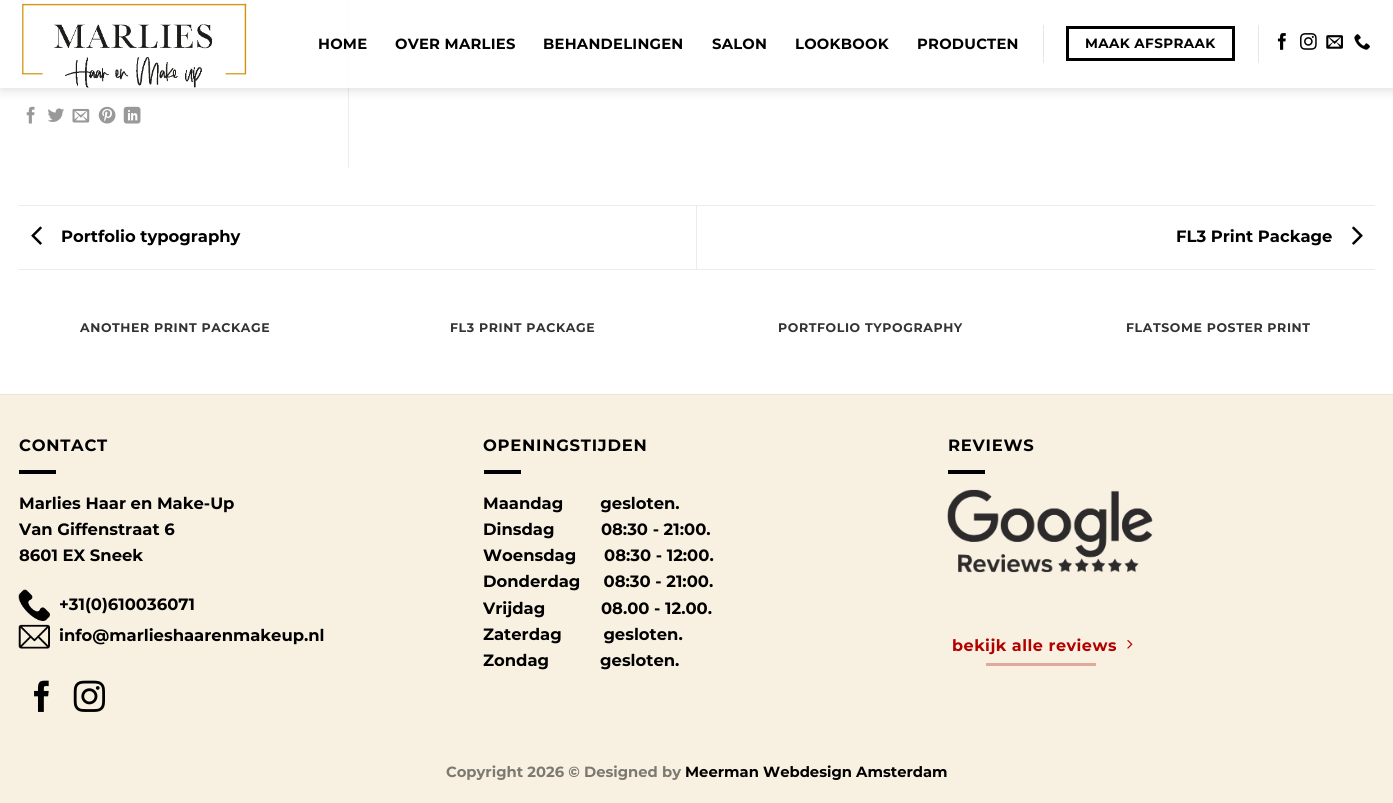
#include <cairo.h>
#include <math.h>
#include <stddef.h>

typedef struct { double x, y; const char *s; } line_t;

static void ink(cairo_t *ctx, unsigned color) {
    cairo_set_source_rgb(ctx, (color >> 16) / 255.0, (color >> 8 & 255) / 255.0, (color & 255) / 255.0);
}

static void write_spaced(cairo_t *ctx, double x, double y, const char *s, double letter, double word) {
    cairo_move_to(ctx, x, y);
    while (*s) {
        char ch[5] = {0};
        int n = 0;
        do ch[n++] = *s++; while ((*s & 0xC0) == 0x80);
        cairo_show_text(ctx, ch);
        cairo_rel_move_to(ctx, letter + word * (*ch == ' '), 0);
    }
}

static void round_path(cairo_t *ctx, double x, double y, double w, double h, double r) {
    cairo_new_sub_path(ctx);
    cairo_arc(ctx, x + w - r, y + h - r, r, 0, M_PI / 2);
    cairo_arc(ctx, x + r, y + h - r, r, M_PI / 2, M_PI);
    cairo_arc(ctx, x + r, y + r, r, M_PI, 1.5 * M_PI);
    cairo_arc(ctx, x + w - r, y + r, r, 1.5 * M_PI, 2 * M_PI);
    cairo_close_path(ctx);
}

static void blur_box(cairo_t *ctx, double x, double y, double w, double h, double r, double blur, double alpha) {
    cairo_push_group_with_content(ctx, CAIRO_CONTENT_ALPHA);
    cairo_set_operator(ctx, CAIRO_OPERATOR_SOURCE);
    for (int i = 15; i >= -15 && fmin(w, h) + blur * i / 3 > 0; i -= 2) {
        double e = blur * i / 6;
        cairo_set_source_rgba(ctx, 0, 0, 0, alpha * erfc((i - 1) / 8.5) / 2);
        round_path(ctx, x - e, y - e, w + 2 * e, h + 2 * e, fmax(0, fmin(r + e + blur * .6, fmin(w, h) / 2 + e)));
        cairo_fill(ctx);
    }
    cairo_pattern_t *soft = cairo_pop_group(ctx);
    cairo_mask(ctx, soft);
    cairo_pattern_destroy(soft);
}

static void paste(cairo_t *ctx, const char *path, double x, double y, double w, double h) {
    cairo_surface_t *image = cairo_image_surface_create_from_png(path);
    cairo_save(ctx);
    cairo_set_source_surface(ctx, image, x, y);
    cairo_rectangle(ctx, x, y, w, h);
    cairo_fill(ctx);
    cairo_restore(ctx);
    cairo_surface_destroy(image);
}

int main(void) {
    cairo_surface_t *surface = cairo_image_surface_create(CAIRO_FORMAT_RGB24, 1393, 803);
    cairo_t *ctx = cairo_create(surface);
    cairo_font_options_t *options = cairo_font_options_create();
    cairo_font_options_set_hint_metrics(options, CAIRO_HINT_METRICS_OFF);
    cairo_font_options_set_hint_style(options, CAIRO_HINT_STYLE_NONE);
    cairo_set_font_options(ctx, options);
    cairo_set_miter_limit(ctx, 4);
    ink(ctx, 0xFFFFFF);
    cairo_paint(ctx);
    ink(ctx, 0xECECEC);
    cairo_rectangle(ctx, 348, 0, 1, 168);
    cairo_fill(ctx);
    paste(ctx, "media/6.png", 26, 106, 9, 18);
    paste(ctx, "media/9.png", 98, 106, 18, 18);
    paste(ctx, "media/10.png", 123, 106, 18, 18);
    cairo_save(ctx);
    cairo_set_fill_rule(ctx, CAIRO_FILL_RULE_EVEN_ODD);
    cairo_new_path(ctx);
    cairo_move_to(ctx, 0, 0);
    cairo_line_to(ctx, 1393, 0);
    cairo_line_to(ctx, 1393, 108);
    cairo_line_to(ctx, 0, 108);
    cairo_close_path(ctx);
    cairo_move_to(ctx, 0, 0);
    cairo_line_to(ctx, 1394, 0);
    cairo_line_to(ctx, 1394, 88);
    cairo_line_to(ctx, 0, 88);
    cairo_close_path(ctx);
    cairo_clip(ctx);
    ink(ctx, 0x000000);
    blur_box(ctx, 1, 1, 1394, 88, 0, 6, 0.15);
    cairo_restore(ctx);
    cairo_set_source_rgba(ctx, 1, 1, 1, 0.9);
    cairo_rectangle(ctx, 0, 0, 1393, 88);
    cairo_fill(ctx);
    paste(ctx, "media/1.png", 22, 3, 225, 85);
    cairo_select_font_face(ctx, "Montserrat", CAIRO_FONT_SLANT_NORMAL, CAIRO_FONT_WEIGHT_BOLD);
    cairo_set_font_size(ctx, 14.75);
    ink(ctx, 0x000000);
    {
        static const line_t items[] = {
            {318, 49, "HOME"},
            {395, 49, "OVER MARLIES"},
            {543, 49, "BEHANDELINGEN"},
            {712, 49, "SALON"},
            {795, 49, "LOOKBOOK"},
            {917, 49, "PRODUCTEN"},
        };
        for (size_t i = 0; i < sizeof items / sizeof *items; i++) {
            write_spaced(ctx, items[i].x, items[i].y, items[i].s, 0.25, 0);
        }
    }
    ink(ctx, 0xE6E6E6);
    cairo_rectangle(ctx, 1043, 25, 1, 38);
    cairo_fill(ctx);
    cairo_rectangle(ctx, 1067.5, 27.5, 166, 32);
    ink(ctx, 0x000000);
    cairo_set_line_width(ctx, 3);
    cairo_stroke(ctx);
    cairo_set_font_size(ctx, 13.5);
    write_spaced(ctx, 1085, 48, "MAAK AFSPRAAK", 0.4, 0);
    ink(ctx, 0xE6E6E6);
    cairo_rectangle(ctx, 1258, 25, 1, 38);
    cairo_fill(ctx);
    paste(ctx, "media/2.png", 1277, 33, 9, 17);
    paste(ctx, "media/3.png", 1300, 33, 17, 17);
    paste(ctx, "media/4.png", 1326, 35, 17, 14);
    paste(ctx, "media/5.png", 1354, 34, 16, 16);
    paste(ctx, "media/7.png", 47, 108, 17, 14);
    paste(ctx, "media/8.png", 72, 108, 18, 15);
    ink(ctx, 0xECECEC);
    cairo_rectangle(ctx, 19, 205, 1356, 1);
    cairo_fill(ctx);
    cairo_rectangle(ctx, 19, 269, 1356, 1);
    cairo_fill(ctx);
    paste(ctx, "media/11.png", 31, 226, 11, 19);
    cairo_set_font_size(ctx, 16.4);
    ink(ctx, 0x000000);
    cairo_move_to(ctx, 61, 242);
    cairo_show_text(ctx, "Portfolio typography");
    ink(ctx, 0xECECEC);
    cairo_rectangle(ctx, 696, 206, 1, 63);
    cairo_fill(ctx);
    ink(ctx, 0x000000);
    cairo_move_to(ctx, 1176, 242);
    cairo_show_text(ctx, "FL3 Print Package");
    paste(ctx, "media/12.png", 1352, 226, 11, 19);
    cairo_set_font_size(ctx, 12.5);
    ink(ctx, 0x333333);
    {
        static const line_t items[] = {
            {80, 332, "ANOTHER PRINT PACKAGE"},
            {450, 332, "FL3 PRINT PACKAGE"},
            {778, 332, "PORTFOLIO TYPOGRAPHY"},
            {1126, 332, "FLATSOME POSTER PRINT"},
        };
        for (size_t i = 0; i < sizeof items / sizeof *items; i++) {
            write_spaced(ctx, items[i].x, items[i].y, items[i].s, 0.6, 0);
        }
    }
    ink(ctx, 0xF8F1E1);
    cairo_rectangle(ctx, 0, 395, 1393, 408);
    cairo_fill(ctx);
    ink(ctx, 0xECE5D6);
    cairo_rectangle(ctx, 0, 394, 1393, 1);
    cairo_fill(ctx);
    cairo_set_font_size(ctx, 16.4);
    ink(ctx, 0x000000);
    write_spaced(ctx, 19, 451, "CONTACT", 0.75, 0);
    cairo_rectangle(ctx, 19, 470, 37, 4);
    cairo_fill(ctx);
    {
        static const line_t items[] = {
            {19, 509, "Marlies Haar en Make-Up"},
            {19, 535, "Van Giffenstraat 6"},
            {19, 561, "8601 EX Sneek"},
        };
        for (size_t i = 0; i < sizeof items / sizeof *items; i++) {
            cairo_move_to(ctx, items[i].x, items[i].y);
            cairo_show_text(ctx, items[i].s);
        }
    }
    paste(ctx, "media/13.png", 18, 589, 32, 32);
    cairo_move_to(ctx, 59, 610);
    cairo_show_text(ctx, "+31(0)610036071");
    paste(ctx, "media/14.png", 18, 624, 32, 25);
    cairo_move_to(ctx, 59, 641);
    cairo_show_text(ctx, "info@marlieshaarenmakeup.nl");
    paste(ctx, "media/15.png", 34, 680, 15, 32);
    paste(ctx, "media/16.png", 73, 680, 32, 32);
    write_spaced(ctx, 483, 451, "OPENINGSTIJDEN", 0.75, 0);
    cairo_rectangle(ctx, 484, 470, 37, 4);
    cairo_fill(ctx);
    {
        static const line_t items[] = {
            {483, 509, "Maandag        gesloten."},
            {483, 535, "Dinsdag          08:30 - 21:00."},
            {483, 561, "Woensdag      08:30 - 12:00."},
            {483, 587, "Donderdag     08:30 - 21:00."},
            {483, 614, "Vrijdag            08.00 - 12.00."},
            {483, 640, "Zaterdag         gesloten."},
            {483, 666, "Zondag           gesloten."},
        };
        for (size_t i = 0; i < sizeof items / sizeof *items; i++) {
            cairo_move_to(ctx, items[i].x, items[i].y);
            cairo_show_text(ctx, items[i].s);
        }
    }
    write_spaced(ctx, 948, 451, "REVIEWS", 0.75, 0);
    cairo_rectangle(ctx, 948, 470, 37, 4);
    cairo_fill(ctx);
    paste(ctx, "media/17.png", 947, 489, 206, 84);
    cairo_set_font_size(ctx, 16);
    ink(ctx, 0xB20000);
    write_spaced(ctx, 952, 651, "bekijk alle reviews", 0.5, 0);
    paste(ctx, "media/18.png", 1127, 640, 6, 9);
    ink(ctx, 0xE3A99E);
    cairo_rectangle(ctx, 986, 663, 110, 3);
    cairo_fill(ctx);
    cairo_set_font_size(ctx, 14.75);
    ink(ctx, 0x7C7971);
    cairo_move_to(ctx, 446, 777);
    cairo_show_text(ctx, "Copyright 2026 © Designed by");
    ink(ctx, 0x000000);
    cairo_move_to(ctx, 685, 777);
    cairo_show_text(ctx, "Meerman Webdesign Amsterdam");
    cairo_surface_write_to_png(surface, "image.png");
    cairo_font_options_destroy(options);
    cairo_destroy(ctx);
    cairo_surface_destroy(surface);
    return 0;
}
